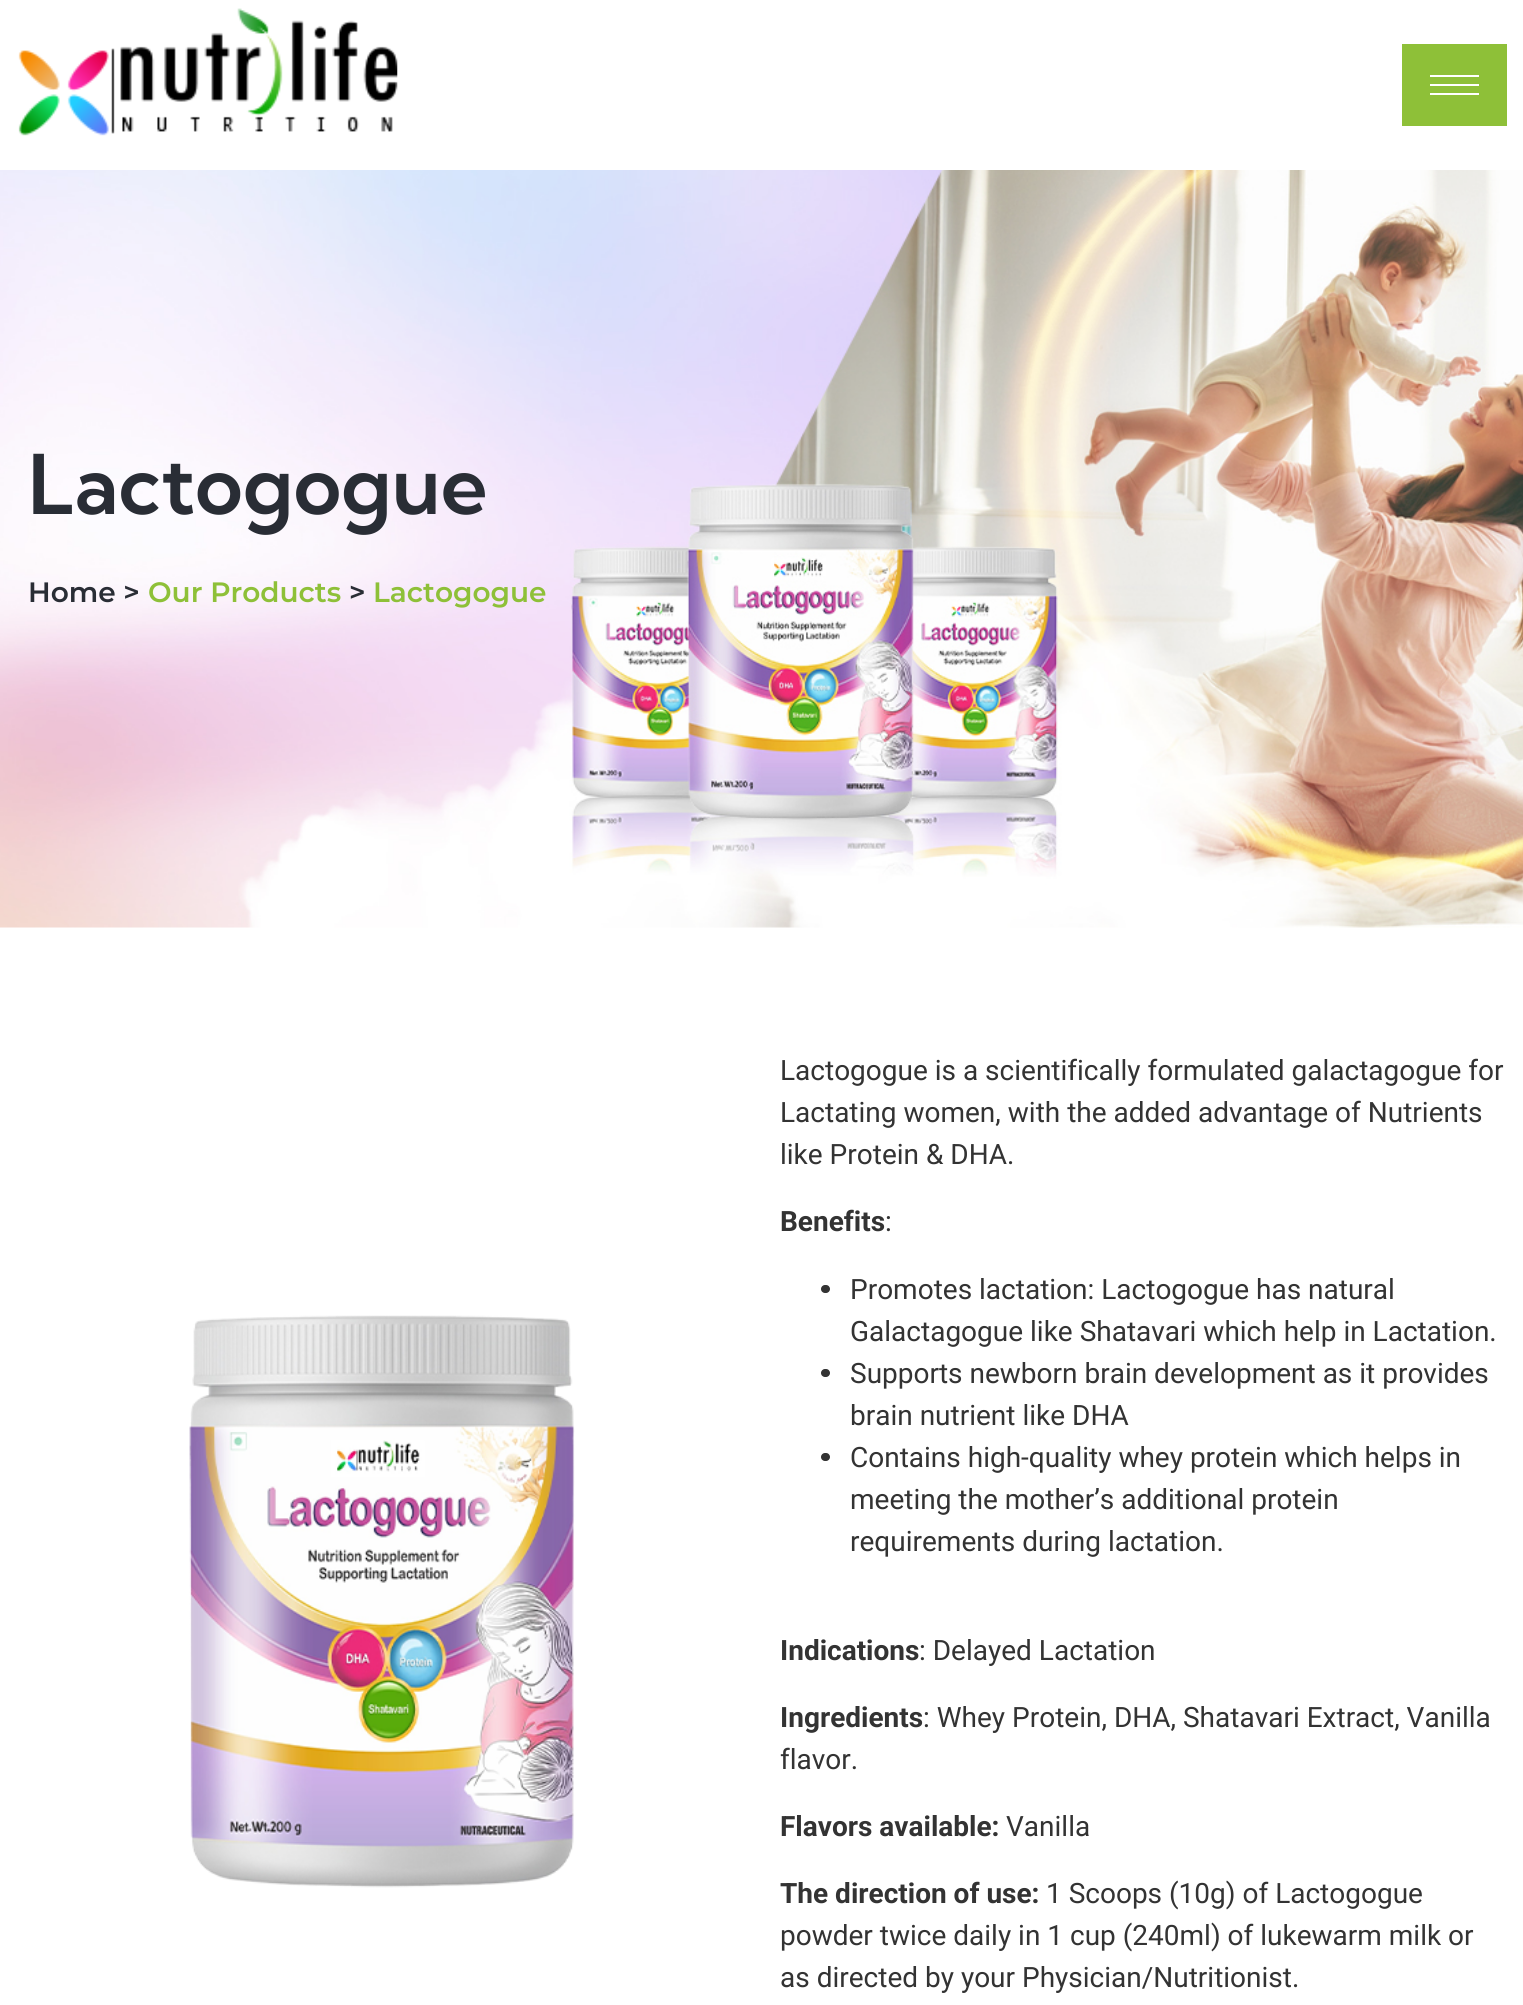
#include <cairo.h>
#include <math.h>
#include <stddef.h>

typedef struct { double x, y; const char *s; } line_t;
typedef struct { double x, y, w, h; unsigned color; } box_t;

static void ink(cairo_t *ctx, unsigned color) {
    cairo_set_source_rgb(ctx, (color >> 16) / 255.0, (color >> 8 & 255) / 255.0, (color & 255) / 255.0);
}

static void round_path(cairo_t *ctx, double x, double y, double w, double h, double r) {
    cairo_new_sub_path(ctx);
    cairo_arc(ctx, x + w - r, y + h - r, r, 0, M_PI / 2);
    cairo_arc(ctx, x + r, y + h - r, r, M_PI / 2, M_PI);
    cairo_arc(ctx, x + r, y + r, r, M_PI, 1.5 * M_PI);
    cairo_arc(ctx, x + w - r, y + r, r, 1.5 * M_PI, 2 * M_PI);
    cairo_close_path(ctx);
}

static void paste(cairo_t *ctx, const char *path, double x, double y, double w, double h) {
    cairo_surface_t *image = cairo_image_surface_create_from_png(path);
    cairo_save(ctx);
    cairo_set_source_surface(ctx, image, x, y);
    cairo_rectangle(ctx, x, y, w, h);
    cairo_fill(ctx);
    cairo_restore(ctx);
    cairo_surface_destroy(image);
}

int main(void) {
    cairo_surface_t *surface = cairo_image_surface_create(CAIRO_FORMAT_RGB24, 1523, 2005);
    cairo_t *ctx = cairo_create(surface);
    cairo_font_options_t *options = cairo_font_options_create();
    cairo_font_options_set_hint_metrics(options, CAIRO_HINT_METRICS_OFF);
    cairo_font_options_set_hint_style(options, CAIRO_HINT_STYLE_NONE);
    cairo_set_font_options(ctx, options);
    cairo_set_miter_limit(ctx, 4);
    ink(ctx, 0xFFFFFF);
    cairo_paint(ctx);
    paste(ctx, "media/1.png", 18, 8, 380, 128);
    {
        static const box_t items[] = {
            {1402, 44, 105, 82, 0x8EC038},
            {1430, 75, 49, 2, 0xFFFFFF},
            {1430, 84, 49, 2, 0xFFFFFF},
            {1430, 93, 49, 2, 0xFFFFFF},
        };
        for (size_t i = 0; i < sizeof items / sizeof *items; i++) {
            ink(ctx, items[i].color);
            cairo_rectangle(ctx, items[i].x, items[i].y, items[i].w, items[i].h);
            cairo_fill(ctx);
        }
    }
    paste(ctx, "media/2.png", 0, 170, 1523, 758);
    cairo_select_font_face(ctx, "Kumbh Sans SemiBold", CAIRO_FONT_SLANT_NORMAL, CAIRO_FONT_WEIGHT_NORMAL);
    cairo_set_font_size(ctx, 82.25);
    ink(ctx, 0x292D35);
    cairo_move_to(ctx, 28, 514);
    cairo_show_text(ctx, "Lactogogue");
    cairo_select_font_face(ctx, "Montserrat SemiBold", CAIRO_FONT_SLANT_NORMAL, CAIRO_FONT_WEIGHT_NORMAL);
    cairo_set_font_size(ctx, 28);
    cairo_move_to(ctx, 28, 602);
    cairo_show_text(ctx, "Home >");
    ink(ctx, 0x8EC038);
    cairo_move_to(ctx, 148, 602);
    cairo_show_text(ctx, "Our Products");
    ink(ctx, 0x292D35);
    cairo_move_to(ctx, 349, 602);
    cairo_show_text(ctx, ">");
    ink(ctx, 0x8EC038);
    cairo_move_to(ctx, 373, 602);
    cairo_show_text(ctx, "Lactogogue");
    paste(ctx, "media/3.png", 189, 1315, 386, 573);
    cairo_select_font_face(ctx, "Roboto", CAIRO_FONT_SLANT_NORMAL, CAIRO_FONT_WEIGHT_NORMAL);
    ink(ctx, 0x333333);
    {
        static const line_t items[] = {
            {780, 1080, "Lactogogue is a scientifically formulated galactagogue for"},
            {780, 1122, "Lactating women, with the added advantage of Nutrients"},
            {780, 1164, "like Protein & DHA."},
        };
        for (size_t i = 0; i < sizeof items / sizeof *items; i++) {
            cairo_move_to(ctx, items[i].x, items[i].y);
            cairo_show_text(ctx, items[i].s);
        }
    }
    cairo_select_font_face(ctx, "Roboto", CAIRO_FONT_SLANT_NORMAL, CAIRO_FONT_WEIGHT_BOLD);
    cairo_move_to(ctx, 780, 1231);
    cairo_show_text(ctx, "Benefits");
    cairo_select_font_face(ctx, "Roboto", CAIRO_FONT_SLANT_NORMAL, CAIRO_FONT_WEIGHT_NORMAL);
    cairo_move_to(ctx, 885, 1231);
    cairo_show_text(ctx, ":");
    round_path(ctx, 821, 1285, 9, 8, 4);
    cairo_fill(ctx);
    cairo_move_to(ctx, 850, 1299);
    cairo_show_text(ctx, "Promotes lactation: Lactogogue has natural");
    cairo_move_to(ctx, 850, 1341);
    cairo_show_text(ctx, "Galactagogue like Shatavari which help in Lactation.");
    round_path(ctx, 821, 1369, 9, 8, 4);
    cairo_fill(ctx);
    cairo_move_to(ctx, 850, 1383);
    cairo_show_text(ctx, "Supports newborn brain development as it provides");
    cairo_move_to(ctx, 850, 1425);
    cairo_show_text(ctx, "brain nutrient like DHA");
    round_path(ctx, 821, 1453, 9, 8, 4);
    cairo_fill(ctx);
    {
        static const line_t items[] = {
            {850, 1467, "Contains high-quality whey protein which helps in"},
            {850, 1509, "meeting the mother’s additional protein"},
            {850, 1551, "requirements during lactation."},
        };
        for (size_t i = 0; i < sizeof items / sizeof *items; i++) {
            cairo_move_to(ctx, items[i].x, items[i].y);
            cairo_show_text(ctx, items[i].s);
        }
    }
    cairo_select_font_face(ctx, "Roboto", CAIRO_FONT_SLANT_NORMAL, CAIRO_FONT_WEIGHT_BOLD);
    cairo_move_to(ctx, 780, 1660);
    cairo_show_text(ctx, "Indications");
    cairo_select_font_face(ctx, "Roboto", CAIRO_FONT_SLANT_NORMAL, CAIRO_FONT_WEIGHT_NORMAL);
    cairo_move_to(ctx, 919, 1660);
    cairo_show_text(ctx, ": Delayed Lactation");
    cairo_select_font_face(ctx, "Roboto", CAIRO_FONT_SLANT_NORMAL, CAIRO_FONT_WEIGHT_BOLD);
    cairo_move_to(ctx, 780, 1727);
    cairo_show_text(ctx, "Ingredients");
    cairo_select_font_face(ctx, "Roboto", CAIRO_FONT_SLANT_NORMAL, CAIRO_FONT_WEIGHT_NORMAL);
    cairo_move_to(ctx, 923, 1727);
    cairo_show_text(ctx, ": Whey Protein, DHA, Shatavari Extract, Vanilla");
    cairo_move_to(ctx, 780, 1769);
    cairo_show_text(ctx, "flavor.");
    cairo_select_font_face(ctx, "Roboto", CAIRO_FONT_SLANT_NORMAL, CAIRO_FONT_WEIGHT_BOLD);
    cairo_move_to(ctx, 780, 1836);
    cairo_show_text(ctx, "Flavors available:");
    cairo_select_font_face(ctx, "Roboto", CAIRO_FONT_SLANT_NORMAL, CAIRO_FONT_WEIGHT_NORMAL);
    cairo_move_to(ctx, 1006, 1836);
    cairo_show_text(ctx, "Vanilla");
    cairo_select_font_face(ctx, "Roboto", CAIRO_FONT_SLANT_NORMAL, CAIRO_FONT_WEIGHT_BOLD);
    cairo_move_to(ctx, 780, 1903);
    cairo_show_text(ctx, "The direction of use:");
    cairo_select_font_face(ctx, "Roboto", CAIRO_FONT_SLANT_NORMAL, CAIRO_FONT_WEIGHT_NORMAL);
    {
        static const line_t items[] = {
            {1046, 1903, "1 Scoops (10g) of Lactogogue"},
            {780, 1945, "powder twice daily in 1 cup (240ml) of lukewarm milk or"},
            {780, 1987, "as directed by your Physician/Nutritionist."},
        };
        for (size_t i = 0; i < sizeof items / sizeof *items; i++) {
            cairo_move_to(ctx, items[i].x, items[i].y);
            cairo_show_text(ctx, items[i].s);
        }
    }
    cairo_surface_write_to_png(surface, "image.png");
    cairo_font_options_destroy(options);
    cairo_destroy(ctx);
    cairo_surface_destroy(surface);
    return 0;
}
